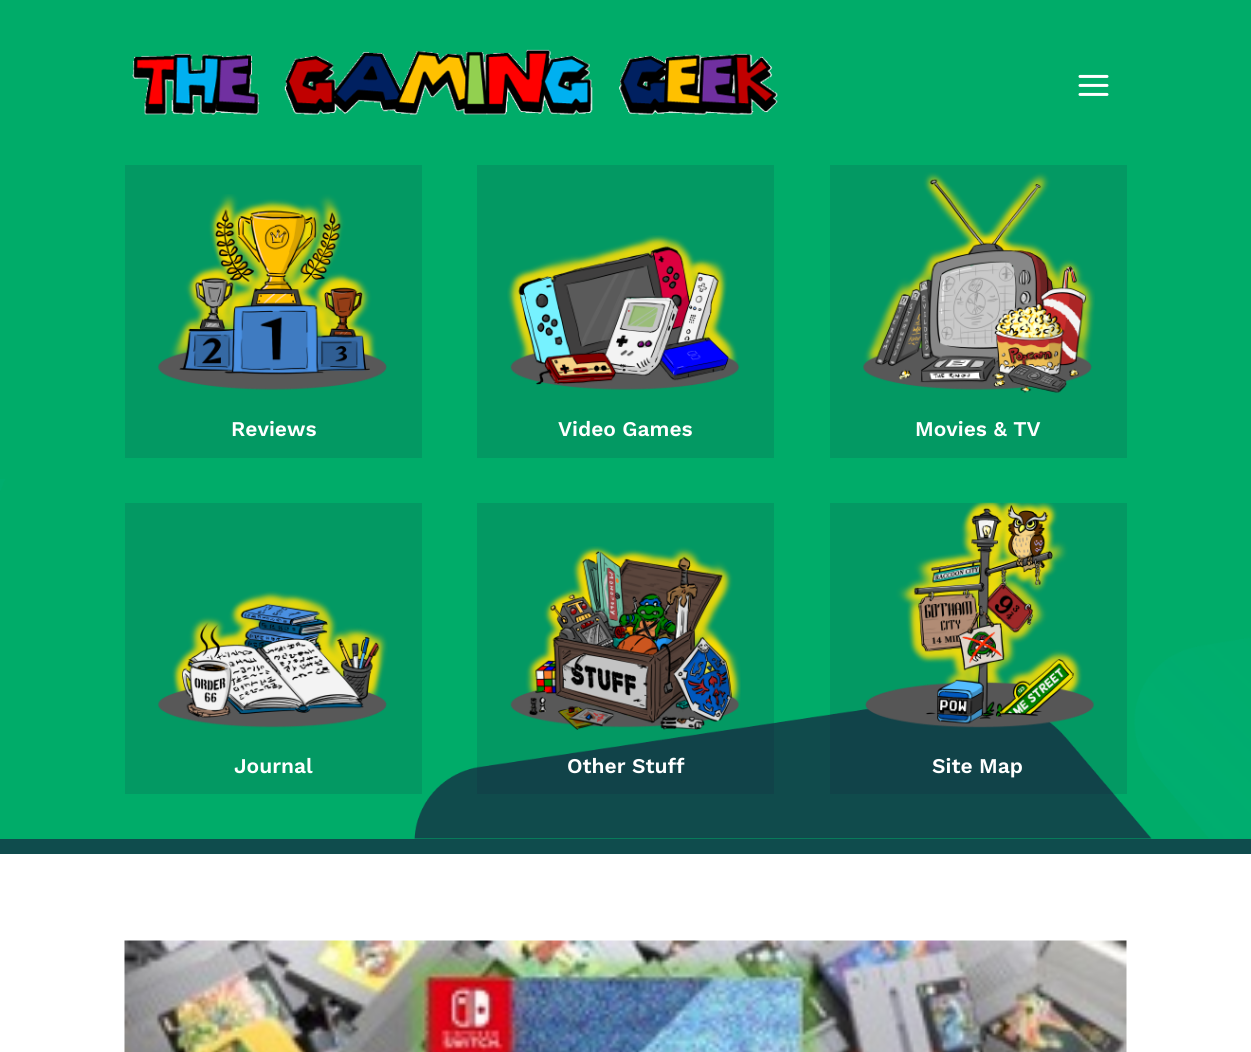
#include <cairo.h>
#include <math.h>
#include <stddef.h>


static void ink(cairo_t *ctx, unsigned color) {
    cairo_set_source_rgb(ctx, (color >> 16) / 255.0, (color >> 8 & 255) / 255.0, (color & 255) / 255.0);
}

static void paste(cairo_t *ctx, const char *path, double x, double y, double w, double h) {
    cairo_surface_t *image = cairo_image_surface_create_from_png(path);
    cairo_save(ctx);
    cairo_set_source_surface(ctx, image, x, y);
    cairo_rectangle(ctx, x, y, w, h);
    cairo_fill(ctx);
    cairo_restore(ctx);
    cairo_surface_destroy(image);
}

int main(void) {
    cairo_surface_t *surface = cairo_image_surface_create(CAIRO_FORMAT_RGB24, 1251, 1052);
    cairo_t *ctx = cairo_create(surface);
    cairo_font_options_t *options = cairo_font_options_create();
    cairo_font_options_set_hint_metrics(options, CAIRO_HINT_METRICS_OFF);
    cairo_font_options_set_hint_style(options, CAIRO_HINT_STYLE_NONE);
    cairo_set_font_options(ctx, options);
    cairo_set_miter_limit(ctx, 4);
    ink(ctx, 0xFFFFFF);
    cairo_paint(ctx);
    ink(ctx, 0x00AC69);
    cairo_rectangle(ctx, 0, 0, 1251, 839);
    cairo_fill(ctx);
    paste(ctx, "media/1.png", 0, 479, 1251, 360);
    ink(ctx, 0x0F4C4D);
    cairo_rectangle(ctx, 0, 839, 1251, 15);
    cairo_fill(ctx);
    paste(ctx, "media/2.png", 132, 49, 646, 66);
    paste(ctx, "media/3.png", 1078, 74, 31, 22);
    ink(ctx, 0x039963);
    cairo_rectangle(ctx, 125, 165, 297, 293);
    cairo_fill(ctx);
    paste(ctx, "media/4.png", 158, 194, 229, 196);
    cairo_select_font_face(ctx, "Work Sans SemiBold", CAIRO_FONT_SLANT_NORMAL, CAIRO_FONT_WEIGHT_NORMAL);
    cairo_set_font_size(ctx, 21);
    ink(ctx, 0xFFFFFF);
    cairo_move_to(ctx, 231, 436);
    cairo_show_text(ctx, "Reviews");
    ink(ctx, 0x039963);
    cairo_rectangle(ctx, 477, 165, 297, 293);
    cairo_fill(ctx);
    paste(ctx, "media/5.png", 507, 235, 233, 155);
    ink(ctx, 0xFFFFFF);
    cairo_move_to(ctx, 558, 436);
    cairo_show_text(ctx, "Video Games");
    ink(ctx, 0x039963);
    cairo_rectangle(ctx, 830, 165, 297, 293);
    cairo_fill(ctx);
    paste(ctx, "media/6.png", 863, 172, 232, 221);
    ink(ctx, 0xFFFFFF);
    cairo_move_to(ctx, 915, 436);
    cairo_show_text(ctx, "Movies & TV");
    ink(ctx, 0x039963);
    cairo_rectangle(ctx, 125, 503, 297, 291);
    cairo_fill(ctx);
    paste(ctx, "media/7.png", 158, 591, 230, 137);
    ink(ctx, 0xFFFFFF);
    cairo_move_to(ctx, 234, 773);
    cairo_show_text(ctx, "Journal");
    cairo_set_source_rgba(ctx, 0.102, 0.039, 0.22, 0.12);
    cairo_rectangle(ctx, 477, 503, 297, 291);
    cairo_fill(ctx);
    paste(ctx, "media/8.png", 510, 546, 231, 184);
    ink(ctx, 0xFFFFFF);
    cairo_move_to(ctx, 567, 773);
    cairo_show_text(ctx, "Other Stuff");
    cairo_set_source_rgba(ctx, 0.102, 0.039, 0.22, 0.12);
    cairo_rectangle(ctx, 830, 503, 297, 291);
    cairo_fill(ctx);
    paste(ctx, "media/9.png", 865, 502, 229, 226);
    ink(ctx, 0xFFFFFF);
    cairo_move_to(ctx, 932, 773);
    cairo_show_text(ctx, "Site Map");
    paste(ctx, "media/10.png", 124, 940, 1003, 112);
    cairo_surface_write_to_png(surface, "image.png");
    cairo_font_options_destroy(options);
    cairo_destroy(ctx);
    cairo_surface_destroy(surface);
    return 0;
}
